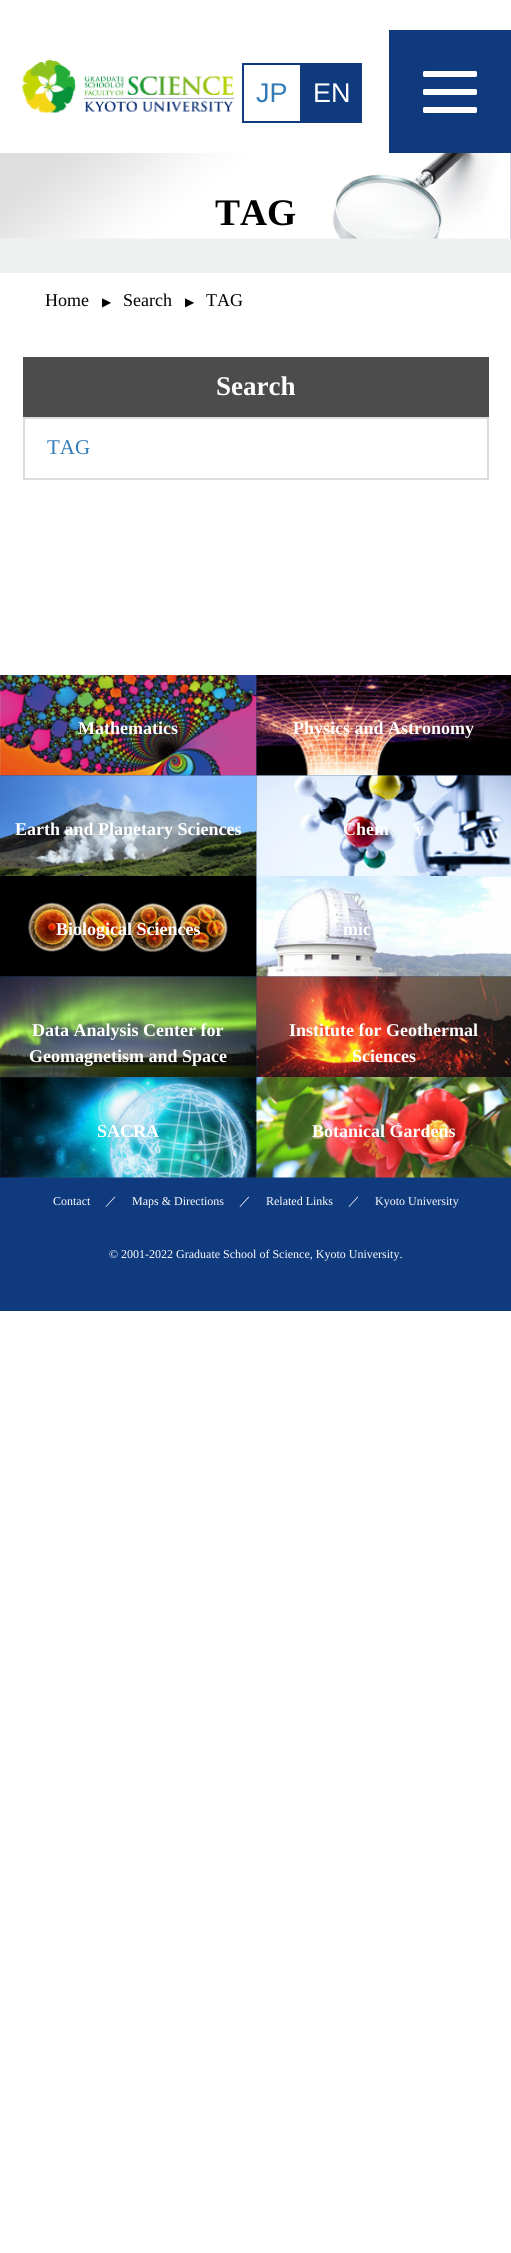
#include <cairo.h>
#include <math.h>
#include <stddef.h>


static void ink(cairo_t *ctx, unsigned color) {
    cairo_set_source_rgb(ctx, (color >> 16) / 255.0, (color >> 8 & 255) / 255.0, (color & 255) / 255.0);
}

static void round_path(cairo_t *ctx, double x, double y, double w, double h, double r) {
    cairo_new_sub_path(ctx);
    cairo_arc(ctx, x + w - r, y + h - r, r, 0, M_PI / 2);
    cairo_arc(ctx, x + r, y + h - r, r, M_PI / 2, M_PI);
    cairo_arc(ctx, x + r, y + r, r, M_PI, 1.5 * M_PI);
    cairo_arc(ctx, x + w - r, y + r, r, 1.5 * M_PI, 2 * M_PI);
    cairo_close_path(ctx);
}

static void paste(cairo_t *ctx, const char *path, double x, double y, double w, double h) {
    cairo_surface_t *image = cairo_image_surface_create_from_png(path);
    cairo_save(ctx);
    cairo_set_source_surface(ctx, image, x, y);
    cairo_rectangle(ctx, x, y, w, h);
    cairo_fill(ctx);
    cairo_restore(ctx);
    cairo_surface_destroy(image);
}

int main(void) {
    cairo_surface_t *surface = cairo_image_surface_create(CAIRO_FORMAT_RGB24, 511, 2253);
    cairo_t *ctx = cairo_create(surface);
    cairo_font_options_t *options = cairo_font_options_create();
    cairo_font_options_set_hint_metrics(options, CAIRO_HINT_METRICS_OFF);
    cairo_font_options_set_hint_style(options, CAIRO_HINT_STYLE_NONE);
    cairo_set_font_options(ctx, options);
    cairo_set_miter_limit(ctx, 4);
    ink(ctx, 0xFFFFFF);
    cairo_paint(ctx);
    paste(ctx, "media/1.png", 22, 60, 212, 53);
    cairo_rectangle(ctx, 243, 64, 58, 58);
    ink(ctx, 0x0F3A7E);
    cairo_stroke(ctx);
    cairo_select_font_face(ctx, "Liberation Sans", CAIRO_FONT_SLANT_NORMAL, CAIRO_FONT_WEIGHT_NORMAL);
    cairo_set_font_size(ctx, 27);
    ink(ctx, 0x337AB7);
    cairo_move_to(ctx, 256, 102);
    cairo_show_text(ctx, "JP");
    ink(ctx, 0x0F3A7E);
    cairo_rectangle(ctx, 302, 63, 60, 60);
    cairo_fill(ctx);
    ink(ctx, 0xFFFFFF);
    cairo_move_to(ctx, 313, 102);
    cairo_show_text(ctx, "EN");
    ink(ctx, 0x0F3A7E);
    cairo_rectangle(ctx, 389, 30, 122, 123);
    cairo_fill(ctx);
    ink(ctx, 0xFFFFFF);
    round_path(ctx, 423, 71, 54, 6, 1.5);
    cairo_fill(ctx);
    round_path(ctx, 423, 89, 54, 6, 1.5);
    cairo_fill(ctx);
    round_path(ctx, 423, 107, 54, 6, 1.5);
    cairo_fill(ctx);
    ink(ctx, 0xEFF0F0);
    cairo_rectangle(ctx, 0, 238, 511, 35);
    cairo_fill(ctx);
    paste(ctx, "media/2.png", 0, 153, 511, 86);
    cairo_select_font_face(ctx, "Liberation Serif", CAIRO_FONT_SLANT_NORMAL, CAIRO_FONT_WEIGHT_BOLD);
    cairo_set_font_size(ctx, 37.5);
    ink(ctx, 0x000000);
    cairo_move_to(ctx, 215, 225);
    cairo_show_text(ctx, "TAG");
    cairo_select_font_face(ctx, "Liberation Serif", CAIRO_FONT_SLANT_NORMAL, CAIRO_FONT_WEIGHT_NORMAL);
    cairo_set_font_size(ctx, 18);
    cairo_move_to(ctx, 45, 306);
    cairo_show_text(ctx, "Home");
    cairo_select_font_face(ctx, "DejaVu Sans", CAIRO_FONT_SLANT_NORMAL, CAIRO_FONT_WEIGHT_NORMAL);
    cairo_set_font_size(ctx, 12);
    cairo_move_to(ctx, 102, 306);
    cairo_show_text(ctx, "▶");
    cairo_select_font_face(ctx, "Liberation Serif", CAIRO_FONT_SLANT_NORMAL, CAIRO_FONT_WEIGHT_NORMAL);
    cairo_set_font_size(ctx, 18);
    cairo_move_to(ctx, 123, 306);
    cairo_show_text(ctx, "Search");
    cairo_select_font_face(ctx, "DejaVu Sans", CAIRO_FONT_SLANT_NORMAL, CAIRO_FONT_WEIGHT_NORMAL);
    cairo_set_font_size(ctx, 12);
    cairo_move_to(ctx, 185, 306);
    cairo_show_text(ctx, "▶");
    cairo_select_font_face(ctx, "Liberation Serif", CAIRO_FONT_SLANT_NORMAL, CAIRO_FONT_WEIGHT_NORMAL);
    cairo_set_font_size(ctx, 18);
    cairo_move_to(ctx, 206, 306);
    cairo_show_text(ctx, "TAG");
    ink(ctx, 0x4C4C4C);
    cairo_rectangle(ctx, 23, 357, 466, 60);
    cairo_fill(ctx);
    cairo_select_font_face(ctx, "Liberation Serif", CAIRO_FONT_SLANT_NORMAL, CAIRO_FONT_WEIGHT_BOLD);
    cairo_set_font_size(ctx, 27);
    ink(ctx, 0xFFFFFF);
    cairo_move_to(ctx, 216, 395);
    cairo_show_text(ctx, "Search");
    cairo_rectangle(ctx, 24, 418, 464, 61);
    ink(ctx, 0xDDDDDD);
    cairo_stroke(ctx);
    cairo_select_font_face(ctx, "Liberation Serif", CAIRO_FONT_SLANT_NORMAL, CAIRO_FONT_WEIGHT_NORMAL);
    cairo_set_font_size(ctx, 21);
    ink(ctx, 0x337AB7);
    cairo_move_to(ctx, 47, 454);
    cairo_show_text(ctx, "TAG");
    ink(ctx, 0x0F3A7E);
    cairo_rectangle(ctx, 0, 675, 511, 636);
    cairo_fill(ctx);
    paste(ctx, "media/3.png", 0, 675, 257, 101);
    cairo_select_font_face(ctx, "Liberation Serif", CAIRO_FONT_SLANT_NORMAL, CAIRO_FONT_WEIGHT_BOLD);
    cairo_set_font_size(ctx, 18);
    ink(ctx, 0xFFFFFF);
    cairo_move_to(ctx, 78, 734);
    cairo_show_text(ctx, "Mathematics");
    paste(ctx, "media/4.png", 256, 675, 255, 101);
    cairo_move_to(ctx, 293, 734);
    cairo_show_text(ctx, "Physics and Astronomy");
    paste(ctx, "media/5.png", 0, 775, 257, 101);
    cairo_move_to(ctx, 15, 835);
    cairo_show_text(ctx, "Earth and Planetary Sciences");
    paste(ctx, "media/6.png", 256, 775, 255, 101);
    cairo_move_to(ctx, 343, 835);
    cairo_show_text(ctx, "Chem");
    cairo_move_to(ctx, 415, 835);
    cairo_show_text(ctx, "y");
    paste(ctx, "media/7.png", 0, 876, 257, 101);
    cairo_move_to(ctx, 56, 935);
    cairo_show_text(ctx, "Biological Sciences");
    paste(ctx, "media/8.png", 256, 876, 255, 101);
    cairo_move_to(ctx, 343, 935);
    cairo_show_text(ctx, "mic");
    paste(ctx, "media/9.png", 0, 976, 257, 101);
    cairo_move_to(ctx, 32, 1036);
    cairo_show_text(ctx, "Data Analysis Center for");
    cairo_move_to(ctx, 29, 1062);
    cairo_show_text(ctx, "Geomagnetism and Space");
    paste(ctx, "media/10.png", 256, 976, 255, 101);
    cairo_move_to(ctx, 289, 1036);
    cairo_show_text(ctx, "Institute for Geothermal");
    cairo_move_to(ctx, 352, 1062);
    cairo_show_text(ctx, "Sciences");
    paste(ctx, "media/11.png", 0, 1077, 257, 101);
    cairo_move_to(ctx, 97, 1137);
    cairo_show_text(ctx, "SACRA");
    paste(ctx, "media/12.png", 256, 1077, 255, 101);
    cairo_move_to(ctx, 312, 1137);
    cairo_show_text(ctx, "Botanical Gardens");
    cairo_select_font_face(ctx, "Liberation Serif", CAIRO_FONT_SLANT_NORMAL, CAIRO_FONT_WEIGHT_NORMAL);
    cairo_set_font_size(ctx, 12);
    cairo_move_to(ctx, 53, 1205);
    cairo_show_text(ctx, "Contact");
    cairo_select_font_face(ctx, "WenQuanYi Zen Hei Medium", CAIRO_FONT_SLANT_NORMAL, CAIRO_FONT_WEIGHT_NORMAL);
    cairo_move_to(ctx, 105, 1205);
    cairo_show_text(ctx, "／");
    cairo_select_font_face(ctx, "Liberation Serif", CAIRO_FONT_SLANT_NORMAL, CAIRO_FONT_WEIGHT_NORMAL);
    cairo_move_to(ctx, 132, 1205);
    cairo_show_text(ctx, "Maps & Directions");
    cairo_select_font_face(ctx, "WenQuanYi Zen Hei Medium", CAIRO_FONT_SLANT_NORMAL, CAIRO_FONT_WEIGHT_NORMAL);
    cairo_move_to(ctx, 239, 1205);
    cairo_show_text(ctx, "／");
    cairo_select_font_face(ctx, "Liberation Serif", CAIRO_FONT_SLANT_NORMAL, CAIRO_FONT_WEIGHT_NORMAL);
    cairo_move_to(ctx, 266, 1205);
    cairo_show_text(ctx, "Related Links");
    cairo_select_font_face(ctx, "WenQuanYi Zen Hei Medium", CAIRO_FONT_SLANT_NORMAL, CAIRO_FONT_WEIGHT_NORMAL);
    cairo_move_to(ctx, 348, 1205);
    cairo_show_text(ctx, "／");
    cairo_select_font_face(ctx, "Liberation Serif", CAIRO_FONT_SLANT_NORMAL, CAIRO_FONT_WEIGHT_NORMAL);
    cairo_move_to(ctx, 375, 1205);
    cairo_show_text(ctx, "Kyoto University");
    cairo_move_to(ctx, 109, 1258);
    cairo_show_text(ctx, "© 2001-2022 Graduate School of Science, Kyoto University.");
    cairo_surface_write_to_png(surface, "image.png");
    cairo_font_options_destroy(options);
    cairo_destroy(ctx);
    cairo_surface_destroy(surface);
    return 0;
}
